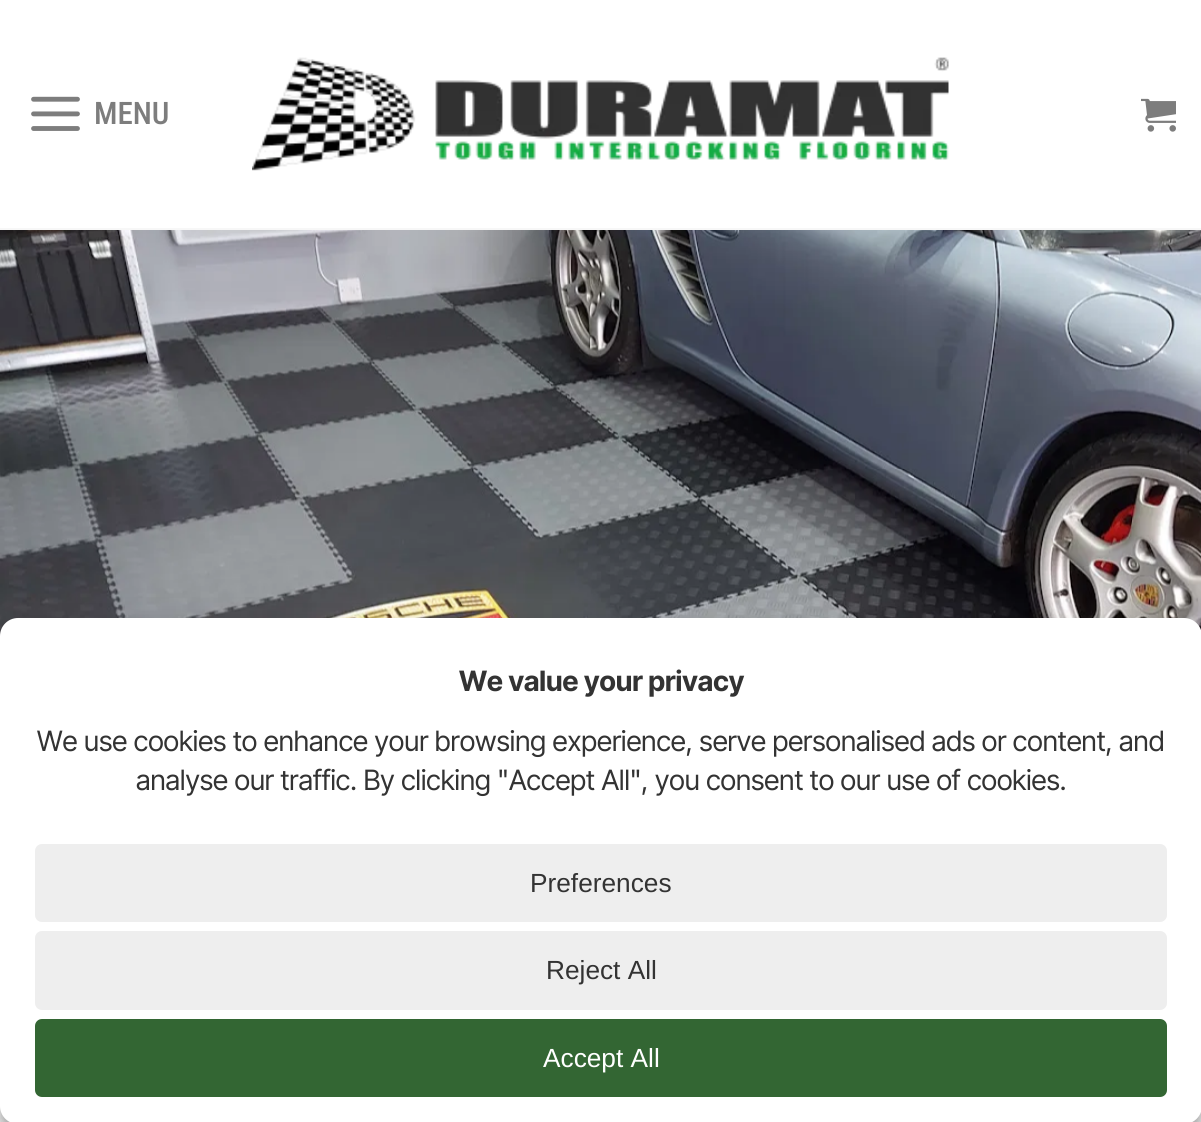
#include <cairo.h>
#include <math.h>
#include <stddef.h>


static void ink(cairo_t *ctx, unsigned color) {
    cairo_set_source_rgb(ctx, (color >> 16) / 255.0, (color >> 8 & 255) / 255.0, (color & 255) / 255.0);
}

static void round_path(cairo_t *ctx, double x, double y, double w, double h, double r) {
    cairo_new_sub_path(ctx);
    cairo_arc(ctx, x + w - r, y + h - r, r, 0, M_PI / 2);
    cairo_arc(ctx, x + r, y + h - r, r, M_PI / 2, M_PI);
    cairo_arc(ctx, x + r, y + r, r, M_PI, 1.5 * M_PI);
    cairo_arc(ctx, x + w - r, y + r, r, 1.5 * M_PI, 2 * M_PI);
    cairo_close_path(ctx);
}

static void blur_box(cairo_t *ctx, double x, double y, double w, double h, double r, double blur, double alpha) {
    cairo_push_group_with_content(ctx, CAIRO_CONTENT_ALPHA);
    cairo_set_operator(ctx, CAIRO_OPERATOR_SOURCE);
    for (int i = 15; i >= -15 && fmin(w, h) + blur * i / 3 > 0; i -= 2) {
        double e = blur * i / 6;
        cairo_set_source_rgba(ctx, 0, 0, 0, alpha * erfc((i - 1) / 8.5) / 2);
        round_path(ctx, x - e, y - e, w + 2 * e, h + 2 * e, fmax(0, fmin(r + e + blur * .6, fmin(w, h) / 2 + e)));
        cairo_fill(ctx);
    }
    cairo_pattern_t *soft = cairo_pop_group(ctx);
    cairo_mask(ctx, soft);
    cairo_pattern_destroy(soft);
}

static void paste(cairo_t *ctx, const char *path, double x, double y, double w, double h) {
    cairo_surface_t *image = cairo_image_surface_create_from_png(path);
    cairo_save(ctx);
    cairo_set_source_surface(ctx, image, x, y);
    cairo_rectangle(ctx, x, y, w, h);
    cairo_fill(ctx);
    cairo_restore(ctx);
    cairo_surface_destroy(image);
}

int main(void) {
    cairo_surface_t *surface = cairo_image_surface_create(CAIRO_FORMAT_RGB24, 1201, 1122);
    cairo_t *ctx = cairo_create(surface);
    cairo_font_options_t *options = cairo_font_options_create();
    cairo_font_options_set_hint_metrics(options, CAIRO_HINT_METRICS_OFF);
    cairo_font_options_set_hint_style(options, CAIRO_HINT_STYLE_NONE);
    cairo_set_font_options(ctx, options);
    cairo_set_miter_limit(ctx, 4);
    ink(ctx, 0xFFFFFF);
    cairo_paint(ctx);
    ink(ctx, 0xF7F7F7);
    cairo_rectangle(ctx, 0, 228, 1201, 2);
    cairo_fill(ctx);
    paste(ctx, "media/1.png", 31, 96, 49, 35);
    cairo_select_font_face(ctx, "Roboto Condensed Medium", CAIRO_FONT_SLANT_NORMAL, CAIRO_FONT_WEIGHT_NORMAL);
    cairo_set_font_size(ctx, 31);
    ink(ctx, 0x7D7D7D);
    cairo_move_to(ctx, 94, 124);
    cairo_show_text(ctx, "MENU");
    paste(ctx, "media/2.png", 252, 57, 697, 114);
    paste(ctx, "media/3.png", 1141, 98, 35, 34);
    paste(ctx, "media/4.png", 0, 230, 1201, 239);
    paste(ctx, "media/5.png", 0, 469, 1201, 167);
    ink(ctx, 0x000000);
    blur_box(ctx, 0, 628, 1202, 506, 18, 5, 0.23);
    blur_box(ctx, 0, 635, 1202, 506, 18, 17.5, 0.19);
    ink(ctx, 0xFFFFFF);
    round_path(ctx, 0, 618, 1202, 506, 18);
    cairo_fill(ctx);
    cairo_select_font_face(ctx, "Inter Tight", CAIRO_FONT_SLANT_NORMAL, CAIRO_FONT_WEIGHT_BOLD);
    cairo_set_font_size(ctx, 28);
    ink(ctx, 0x333333);
    cairo_move_to(ctx, 459, 691);
    cairo_show_text(ctx, "We value your privacy");
    cairo_select_font_face(ctx, "Inter Tight", CAIRO_FONT_SLANT_NORMAL, CAIRO_FONT_WEIGHT_NORMAL);
    cairo_move_to(ctx, 37, 751);
    cairo_show_text(ctx, "We use cookies to enhance your browsing experience, serve personalised ads or content, and");
    cairo_move_to(ctx, 136, 790);
    cairo_show_text(ctx, "analyse our traffic. By clicking \"Accept All\", you consent to our use of cookies.");
    ink(ctx, 0xEEEEEE);
    round_path(ctx, 35, 844, 1132, 78, 7);
    cairo_fill(ctx);
    cairo_select_font_face(ctx, "Liberation Sans", CAIRO_FONT_SLANT_NORMAL, CAIRO_FONT_WEIGHT_NORMAL);
    cairo_set_font_size(ctx, 26.25);
    ink(ctx, 0x333333);
    cairo_move_to(ctx, 530, 892);
    cairo_show_text(ctx, "Preferences");
    ink(ctx, 0xEEEEEE);
    round_path(ctx, 35, 931, 1132, 79, 7);
    cairo_fill(ctx);
    ink(ctx, 0x333333);
    cairo_move_to(ctx, 546, 979);
    cairo_show_text(ctx, "Reject All");
    ink(ctx, 0x336633);
    round_path(ctx, 35, 1019, 1132, 78, 7);
    cairo_fill(ctx);
    ink(ctx, 0xFFFFFF);
    cairo_move_to(ctx, 543, 1067);
    cairo_show_text(ctx, "Accept All");
    cairo_surface_write_to_png(surface, "image.png");
    cairo_font_options_destroy(options);
    cairo_destroy(ctx);
    cairo_surface_destroy(surface);
    return 0;
}
